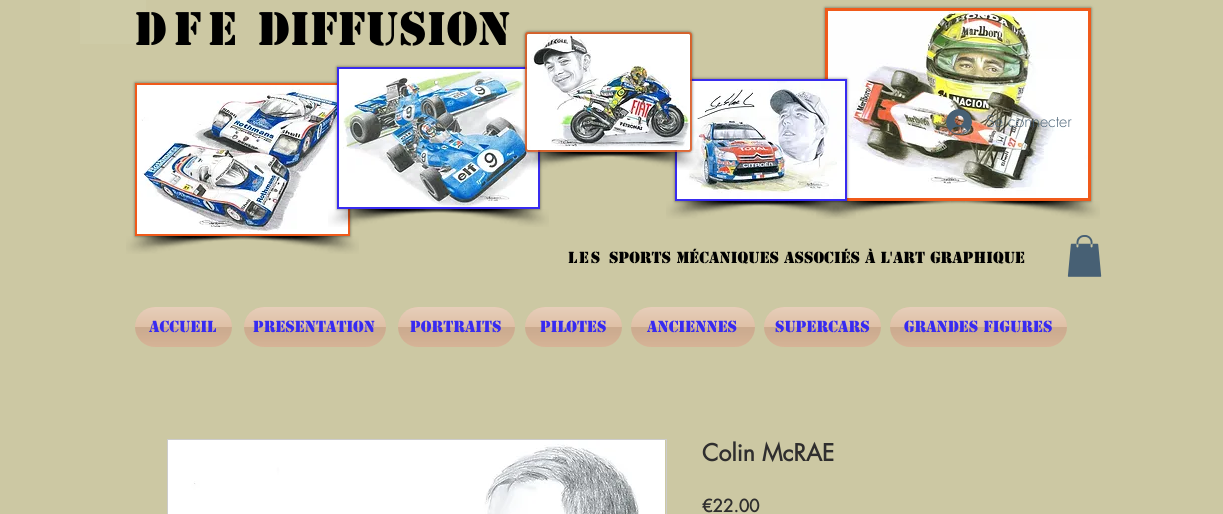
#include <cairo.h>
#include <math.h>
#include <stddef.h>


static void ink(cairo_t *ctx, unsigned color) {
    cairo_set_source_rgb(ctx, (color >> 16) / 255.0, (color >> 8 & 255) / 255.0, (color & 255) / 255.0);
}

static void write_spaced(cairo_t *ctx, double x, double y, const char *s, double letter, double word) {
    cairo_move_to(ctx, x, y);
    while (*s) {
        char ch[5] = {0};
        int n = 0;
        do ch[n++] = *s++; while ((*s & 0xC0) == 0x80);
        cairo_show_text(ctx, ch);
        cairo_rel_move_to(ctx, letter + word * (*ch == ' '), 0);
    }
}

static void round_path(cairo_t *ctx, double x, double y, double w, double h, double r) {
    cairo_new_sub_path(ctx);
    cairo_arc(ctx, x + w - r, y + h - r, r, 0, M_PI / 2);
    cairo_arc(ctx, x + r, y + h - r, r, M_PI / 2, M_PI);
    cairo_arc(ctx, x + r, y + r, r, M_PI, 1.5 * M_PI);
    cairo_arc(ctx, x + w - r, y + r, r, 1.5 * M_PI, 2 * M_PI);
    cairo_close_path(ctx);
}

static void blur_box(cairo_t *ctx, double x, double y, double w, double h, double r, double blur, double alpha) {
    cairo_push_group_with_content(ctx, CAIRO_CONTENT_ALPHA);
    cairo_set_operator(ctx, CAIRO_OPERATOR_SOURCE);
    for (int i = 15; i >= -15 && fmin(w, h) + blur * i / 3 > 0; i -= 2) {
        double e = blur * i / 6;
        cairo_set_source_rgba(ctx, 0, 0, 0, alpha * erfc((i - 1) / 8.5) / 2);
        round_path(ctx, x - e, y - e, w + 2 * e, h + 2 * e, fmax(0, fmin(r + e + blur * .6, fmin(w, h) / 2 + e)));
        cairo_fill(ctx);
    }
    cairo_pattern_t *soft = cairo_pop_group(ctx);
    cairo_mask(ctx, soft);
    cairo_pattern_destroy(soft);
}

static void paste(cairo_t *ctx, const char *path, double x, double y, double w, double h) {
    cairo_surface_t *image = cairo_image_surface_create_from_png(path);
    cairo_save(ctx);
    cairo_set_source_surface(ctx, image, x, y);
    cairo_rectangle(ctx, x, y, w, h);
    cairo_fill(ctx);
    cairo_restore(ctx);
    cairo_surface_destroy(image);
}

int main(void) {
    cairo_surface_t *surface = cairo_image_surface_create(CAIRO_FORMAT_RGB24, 1223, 514);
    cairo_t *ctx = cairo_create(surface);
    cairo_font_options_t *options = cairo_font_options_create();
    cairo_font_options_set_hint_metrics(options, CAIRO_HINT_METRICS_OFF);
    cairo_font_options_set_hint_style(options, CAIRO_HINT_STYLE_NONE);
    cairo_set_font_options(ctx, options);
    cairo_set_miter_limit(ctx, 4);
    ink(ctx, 0xCCC8A3);
    cairo_paint(ctx);
    cairo_set_source_rgba(ctx, 1, 1, 1, 0.05);
    cairo_rectangle(ctx, 80, 0, 66, 44);
    cairo_fill(ctx);
    cairo_select_font_face(ctx, "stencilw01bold", CAIRO_FONT_SLANT_NORMAL, CAIRO_FONT_WEIGHT_BOLD);
    cairo_set_font_size(ctx, 44);
    ink(ctx, 0x000000);
    write_spaced(ctx, 135, 45, "DFE", 6.5, 0);
    cairo_move_to(ctx, 258, 45);
    cairo_show_text(ctx, "DIFFUSION");
    ink(ctx, 0x000000);
    blur_box(ctx, 135, 83, 215, 153, 0, 1.5, 0.5);
    ink(ctx, 0xF05A1A);
    cairo_rectangle(ctx, 135, 83, 215, 153);
    cairo_fill(ctx);
    paste(ctx, "media/7.png", 137, 85, 211, 149);
    ink(ctx, 0x000000);
    blur_box(ctx, 337, 67, 203, 142, 0, 1.5, 0.5);
    ink(ctx, 0x382BF0);
    cairo_rectangle(ctx, 337, 67, 203, 142);
    cairo_fill(ctx);
    paste(ctx, "media/9.png", 339, 69, 199, 138);
    ink(ctx, 0x000000);
    blur_box(ctx, 825, 8, 266, 193, 0, 1.5, 0.5);
    ink(ctx, 0xF05A1A);
    cairo_rectangle(ctx, 825, 8, 266, 193);
    cairo_fill(ctx);
    paste(ctx, "media/4.png", 828, 11, 260, 187);
    paste(ctx, "media/5.png", 816, 201, 149, 18);
    ink(ctx, 0x000000);
    blur_box(ctx, 675, 79, 172, 122, 0, 1.5, 0.5);
    ink(ctx, 0x382BF0);
    cairo_rectangle(ctx, 675, 79, 172, 122);
    cairo_fill(ctx);
    paste(ctx, "media/12.png", 677, 81, 168, 118);
    ink(ctx, 0x000000);
    blur_box(ctx, 525, 32, 167, 120, 3, 1.5, 0.5);
    cairo_set_source_rgba(ctx, 0.941, 0.353, 0.102, 0.5);
    round_path(ctx, 525, 32, 167, 120, 3);
    cairo_fill(ctx);
    round_path(ctx, 526, 33, 165, 118, 2);
    cairo_stroke(ctx);
    paste(ctx, "media/1.png", 527, 34, 163, 116);
    paste(ctx, "media/2.png", 516, 152, 149, 18);
    paste(ctx, "media/3.png", 580, 152, 121, 18);
    paste(ctx, "media/6.png", 951, 201, 149, 18);
    paste(ctx, "media/5.png", 126, 236, 149, 18);
    paste(ctx, "media/8.png", 224, 236, 135, 18);
    paste(ctx, "media/10.png", 328, 209, 149, 18);
    paste(ctx, "media/11.png", 418, 209, 131, 18);
    paste(ctx, "media/5.png", 666, 201, 149, 18);
    paste(ctx, "media/13.png", 733, 201, 123, 18);
    paste(ctx, "media/14.png", 946, 109, 26, 26);
    cairo_select_font_face(ctx, "futura Light", CAIRO_FONT_SLANT_NORMAL, CAIRO_FONT_WEIGHT_NORMAL);
    cairo_set_font_size(ctx, 16);
    ink(ctx, 0x476074);
    cairo_move_to(ctx, 986, 127);
    cairo_show_text(ctx, "Se connecter");
    cairo_select_font_face(ctx, "stencilw01bold", CAIRO_FONT_SLANT_NORMAL, CAIRO_FONT_WEIGHT_BOLD);
    cairo_set_font_size(ctx, 15);
    ink(ctx, 0x000000);
    write_spaced(ctx, 568, 263, "les", 2, 0);
    cairo_move_to(ctx, 609, 263);
    cairo_show_text(ctx, "sports mécaniques associés à l'art graphique");
    paste(ctx, "media/15.png", 1067, 235, 35, 42);
    ink(ctx, 0xDBB89A);
    round_path(ctx, 135, 307, 97, 40, 20);
    cairo_fill(ctx);
    paste(ctx, "media/16.png", 135, 307, 97, 40);
    ink(ctx, 0x382BF0);
    cairo_move_to(ctx, 149, 332);
    cairo_show_text(ctx, "ACCUEIL");
    ink(ctx, 0xDBB89A);
    round_path(ctx, 244, 307, 142, 40, 20);
    cairo_fill(ctx);
    paste(ctx, "media/17.png", 244, 307, 142, 40);
    ink(ctx, 0x382BF0);
    cairo_move_to(ctx, 253, 332);
    cairo_show_text(ctx, "PRESENTATION");
    ink(ctx, 0xDBB89A);
    round_path(ctx, 398, 307, 117, 40, 20);
    cairo_fill(ctx);
    paste(ctx, "media/18.png", 398, 307, 117, 40);
    ink(ctx, 0x382BF0);
    cairo_move_to(ctx, 410, 332);
    cairo_show_text(ctx, "PORTRAITS");
    ink(ctx, 0xDBB89A);
    round_path(ctx, 525, 307, 97, 40, 20);
    cairo_fill(ctx);
    paste(ctx, "media/16.png", 525, 307, 97, 40);
    ink(ctx, 0x382BF0);
    cairo_move_to(ctx, 540, 332);
    cairo_show_text(ctx, "PILOTES");
    ink(ctx, 0xDBB89A);
    round_path(ctx, 631, 307, 124, 40, 20);
    cairo_fill(ctx);
    paste(ctx, "media/19.png", 631, 307, 124, 40);
    ink(ctx, 0x382BF0);
    cairo_move_to(ctx, 647, 332);
    cairo_show_text(ctx, "ANCIENNES");
    ink(ctx, 0xDBB89A);
    round_path(ctx, 764, 307, 117, 40, 20);
    cairo_fill(ctx);
    paste(ctx, "media/20.png", 764, 307, 117, 40);
    ink(ctx, 0x382BF0);
    cairo_move_to(ctx, 775, 332);
    cairo_show_text(ctx, "SUPERCARS");
    ink(ctx, 0xDBB89A);
    round_path(ctx, 890, 307, 177, 40, 20);
    cairo_fill(ctx);
    paste(ctx, "media/21.png", 890, 307, 177, 40);
    ink(ctx, 0x382BF0);
    cairo_move_to(ctx, 904, 332);
    cairo_show_text(ctx, "GRANDES FIGURES");
    cairo_rectangle(ctx, 167.5, 439.5, 499, 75);
    ink(ctx, 0xCCCCCC);
    cairo_set_line_width(ctx, 1);
    cairo_stroke(ctx);
    paste(ctx, "media/22.png", 168, 440, 497, 74);
    cairo_select_font_face(ctx, "futura", CAIRO_FONT_SLANT_NORMAL, CAIRO_FONT_WEIGHT_BOLD);
    cairo_set_font_size(ctx, 23);
    ink(ctx, 0x2F2E2E);
    cairo_move_to(ctx, 702, 461);
    cairo_show_text(ctx, "Colin McRAE");
    cairo_set_font_size(ctx, 17);
    cairo_move_to(ctx, 702, 512);
    cairo_show_text(ctx, "€22.00");
    cairo_surface_write_to_png(surface, "image.png");
    cairo_font_options_destroy(options);
    cairo_destroy(ctx);
    cairo_surface_destroy(surface);
    return 0;
}
